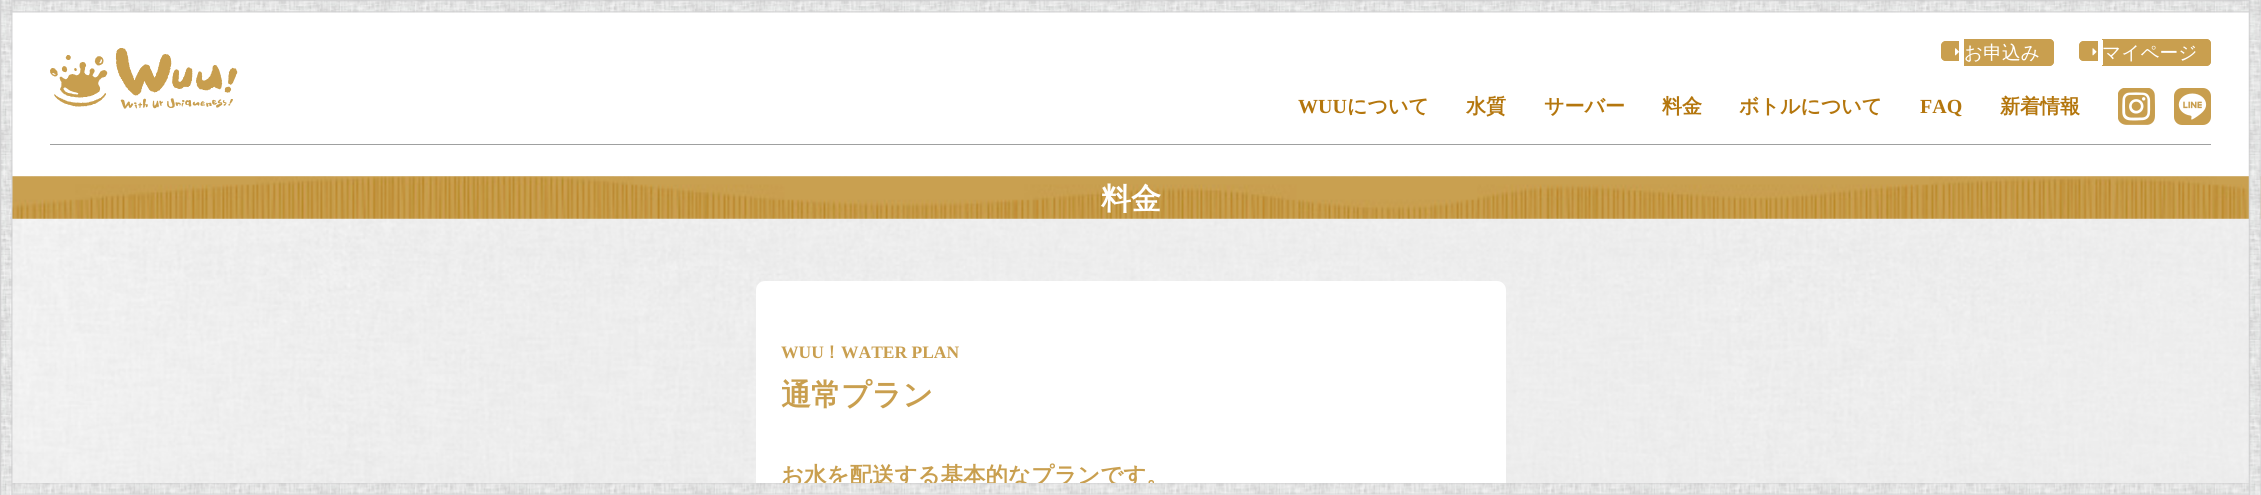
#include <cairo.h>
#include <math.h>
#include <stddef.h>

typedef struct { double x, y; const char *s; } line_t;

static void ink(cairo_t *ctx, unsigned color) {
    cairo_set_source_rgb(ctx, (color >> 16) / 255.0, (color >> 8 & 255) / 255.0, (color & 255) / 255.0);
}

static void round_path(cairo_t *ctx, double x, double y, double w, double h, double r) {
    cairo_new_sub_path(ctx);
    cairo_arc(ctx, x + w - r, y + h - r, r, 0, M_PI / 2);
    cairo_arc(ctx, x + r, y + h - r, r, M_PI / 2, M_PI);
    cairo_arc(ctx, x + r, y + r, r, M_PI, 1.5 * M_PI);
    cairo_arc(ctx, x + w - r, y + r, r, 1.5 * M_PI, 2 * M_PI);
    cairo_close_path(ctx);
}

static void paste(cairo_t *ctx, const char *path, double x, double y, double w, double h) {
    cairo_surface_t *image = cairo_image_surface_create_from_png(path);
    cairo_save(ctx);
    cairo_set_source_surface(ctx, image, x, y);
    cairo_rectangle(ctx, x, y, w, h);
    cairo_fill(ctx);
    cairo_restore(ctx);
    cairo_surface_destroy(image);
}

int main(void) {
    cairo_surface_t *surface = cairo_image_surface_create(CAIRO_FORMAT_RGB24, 2261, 495);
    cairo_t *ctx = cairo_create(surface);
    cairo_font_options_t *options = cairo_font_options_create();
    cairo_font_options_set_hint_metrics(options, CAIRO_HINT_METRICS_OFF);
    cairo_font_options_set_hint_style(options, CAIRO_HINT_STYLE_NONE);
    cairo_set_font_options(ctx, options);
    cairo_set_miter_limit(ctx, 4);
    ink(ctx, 0xFFFFFF);
    cairo_paint(ctx);
    paste(ctx, "media/2.png", 12, 0, 2249, 13);
    paste(ctx, "media/9.png", 12, 176, 2249, 319);
    paste(ctx, "media/10.png", 12, 176, 2249, 43);
    ink(ctx, 0xFFFFFF);
    round_path(ctx, 756, 281, 750, 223, 9);
    cairo_fill(ctx);
    cairo_select_font_face(ctx, "WenQuanYi Zen Hei", CAIRO_FONT_SLANT_NORMAL, CAIRO_FONT_WEIGHT_BOLD);
    cairo_set_font_size(ctx, 22.5);
    ink(ctx, 0xC99F4F);
    cairo_move_to(ctx, 781, 483);
    cairo_show_text(ctx, "お水を配送する基本的なプランです。");
    paste(ctx, "media/11.png", 12, 483, 2249, 12);
    paste(ctx, "media/1.png", 0, 0, 13, 495);
    ink(ctx, 0x9FA0A0);
    cairo_rectangle(ctx, 50, 144, 2161, 1);
    cairo_fill(ctx);
    paste(ctx, "media/3.png", 50, 48, 188, 61);
    ink(ctx, 0xC99F4F);
    cairo_new_path(ctx);
    cairo_move_to(ctx, 1946, 41);
    cairo_line_to(ctx, 1959, 41);
    cairo_line_to(ctx, 1959, 61);
    cairo_line_to(ctx, 1946, 61);
    cairo_curve_to(ctx, 1943, 61, 1941, 59, 1941, 56);
    cairo_line_to(ctx, 1941, 46);
    cairo_curve_to(ctx, 1941, 43, 1943, 41, 1946, 41);
    cairo_close_path(ctx);
    cairo_fill(ctx);
    cairo_set_fill_rule(ctx, CAIRO_FILL_RULE_EVEN_ODD);
    cairo_new_path(ctx);
    cairo_move_to(ctx, 1946, 41);
    cairo_line_to(ctx, 1959, 41);
    cairo_line_to(ctx, 1959, 61);
    cairo_line_to(ctx, 1946, 61);
    cairo_curve_to(ctx, 1943.5, 61, 1941, 59, 1941, 56);
    cairo_line_to(ctx, 1941, 46);
    cairo_curve_to(ctx, 1941, 43.5, 1943.5, 41, 1946, 41);
    cairo_close_path(ctx);
    cairo_move_to(ctx, 1946, 42.5);
    cairo_line_to(ctx, 1959, 42.5);
    cairo_line_to(ctx, 1959, 60);
    cairo_line_to(ctx, 1946, 60);
    cairo_curve_to(ctx, 1944, 60, 1942.5, 58.5, 1942.5, 56);
    cairo_line_to(ctx, 1942.5, 46);
    cairo_curve_to(ctx, 1942.5, 44, 1944, 42.5, 1946, 42.5);
    cairo_close_path(ctx);
    cairo_fill(ctx);
    paste(ctx, "media/4.png", 1955, 48, 4, 8);
    cairo_new_path(ctx);
    cairo_move_to(ctx, 1964, 39);
    cairo_line_to(ctx, 2049, 39);
    cairo_curve_to(ctx, 2052, 39, 2054, 41, 2054, 44);
    cairo_line_to(ctx, 2054, 61);
    cairo_curve_to(ctx, 2054, 64, 2052, 66, 2049, 66);
    cairo_line_to(ctx, 1964, 66);
    cairo_close_path(ctx);
    cairo_fill(ctx);
    cairo_new_path(ctx);
    cairo_move_to(ctx, 1964, 39);
    cairo_line_to(ctx, 2049, 39);
    cairo_curve_to(ctx, 2052, 39, 2054, 41, 2054, 44);
    cairo_line_to(ctx, 2054, 61);
    cairo_curve_to(ctx, 2054, 64, 2052, 66, 2049, 66);
    cairo_line_to(ctx, 1964, 66);
    cairo_close_path(ctx);
    cairo_move_to(ctx, 1964, 40);
    cairo_line_to(ctx, 2049, 40);
    cairo_curve_to(ctx, 2051, 40, 2052, 42, 2052, 44);
    cairo_line_to(ctx, 2052, 61);
    cairo_curve_to(ctx, 2052, 63, 2051, 65, 2049, 65);
    cairo_line_to(ctx, 1964, 65);
    cairo_close_path(ctx);
    cairo_fill(ctx);
    cairo_select_font_face(ctx, "WenQuanYi Zen Hei Medium", CAIRO_FONT_SLANT_NORMAL, CAIRO_FONT_WEIGHT_NORMAL);
    cairo_set_font_size(ctx, 18.75);
    ink(ctx, 0xFFFFFF);
    cairo_move_to(ctx, 1964, 59);
    cairo_show_text(ctx, "お申込み");
    ink(ctx, 0xC99F4F);
    cairo_new_path(ctx);
    cairo_move_to(ctx, 2084, 41);
    cairo_line_to(ctx, 2098, 41);
    cairo_line_to(ctx, 2098, 61);
    cairo_line_to(ctx, 2084, 61);
    cairo_curve_to(ctx, 2081, 61, 2079, 59, 2079, 56);
    cairo_line_to(ctx, 2079, 46);
    cairo_curve_to(ctx, 2079, 43, 2081, 41, 2084, 41);
    cairo_close_path(ctx);
    cairo_fill(ctx);
    cairo_new_path(ctx);
    cairo_move_to(ctx, 2084, 41);
    cairo_line_to(ctx, 2097.5, 41);
    cairo_line_to(ctx, 2097.5, 61);
    cairo_line_to(ctx, 2084, 61);
    cairo_curve_to(ctx, 2081, 61, 2079, 59, 2079, 56);
    cairo_line_to(ctx, 2079, 46);
    cairo_curve_to(ctx, 2079, 43.5, 2081, 41, 2084, 41);
    cairo_close_path(ctx);
    cairo_move_to(ctx, 2084, 42.5);
    cairo_line_to(ctx, 2097.5, 42.5);
    cairo_line_to(ctx, 2097.5, 60);
    cairo_line_to(ctx, 2084, 60);
    cairo_curve_to(ctx, 2081.5, 60, 2080, 58.5, 2080, 56);
    cairo_line_to(ctx, 2080, 46);
    cairo_curve_to(ctx, 2080, 44, 2081.5, 42.5, 2084, 42.5);
    cairo_close_path(ctx);
    cairo_fill(ctx);
    paste(ctx, "media/5.png", 2092, 48, 5, 8);
    cairo_new_path(ctx);
    cairo_move_to(ctx, 2103, 39);
    cairo_line_to(ctx, 2206, 39);
    cairo_curve_to(ctx, 2209, 39, 2211, 41, 2211, 44);
    cairo_line_to(ctx, 2211, 61);
    cairo_curve_to(ctx, 2211, 64, 2209, 66, 2206, 66);
    cairo_line_to(ctx, 2103, 66);
    cairo_close_path(ctx);
    cairo_fill(ctx);
    cairo_new_path(ctx);
    cairo_move_to(ctx, 2102, 39);
    cairo_line_to(ctx, 2206, 39);
    cairo_curve_to(ctx, 2209, 39, 2211, 41, 2211, 44);
    cairo_line_to(ctx, 2211, 61);
    cairo_curve_to(ctx, 2211, 64, 2209, 66, 2206, 66);
    cairo_line_to(ctx, 2102, 66);
    cairo_close_path(ctx);
    cairo_move_to(ctx, 2102, 40);
    cairo_line_to(ctx, 2206, 40);
    cairo_curve_to(ctx, 2208, 40, 2210, 42, 2210, 44);
    cairo_line_to(ctx, 2210, 61);
    cairo_curve_to(ctx, 2210, 63, 2208, 65, 2206, 65);
    cairo_line_to(ctx, 2102, 65);
    cairo_close_path(ctx);
    cairo_fill(ctx);
    ink(ctx, 0xFFFFFF);
    cairo_move_to(ctx, 2102, 59);
    cairo_show_text(ctx, "マイページ");
    cairo_select_font_face(ctx, "Liberation Serif", CAIRO_FONT_SLANT_NORMAL, CAIRO_FONT_WEIGHT_BOLD);
    cairo_set_font_size(ctx, 20);
    ink(ctx, 0xB4760D);
    cairo_move_to(ctx, 1298, 113);
    cairo_show_text(ctx, "WUU");
    cairo_select_font_face(ctx, "WenQuanYi Zen Hei", CAIRO_FONT_SLANT_NORMAL, CAIRO_FONT_WEIGHT_BOLD);
    {
        static const line_t items[] = {
            {1347, 113, "について"},
            {1466, 113, "水質"},
            {1544, 113, "サーバー"},
            {1662, 113, "料金"},
            {1739, 113, "ボトルについて"},
        };
        for (size_t i = 0; i < sizeof items / sizeof *items; i++) {
            cairo_move_to(ctx, items[i].x, items[i].y);
            cairo_show_text(ctx, items[i].s);
        }
    }
    cairo_select_font_face(ctx, "Liberation Serif", CAIRO_FONT_SLANT_NORMAL, CAIRO_FONT_WEIGHT_BOLD);
    cairo_move_to(ctx, 1920, 113);
    cairo_show_text(ctx, "FAQ");
    cairo_select_font_face(ctx, "WenQuanYi Zen Hei", CAIRO_FONT_SLANT_NORMAL, CAIRO_FONT_WEIGHT_BOLD);
    cairo_move_to(ctx, 2000, 113);
    cairo_show_text(ctx, "新着情報");
    paste(ctx, "media/6.png", 2118, 88, 37, 37);
    paste(ctx, "media/7.png", 2174, 88, 37, 37);
    paste(ctx, "media/8.png", 2248, 0, 13, 495);
    cairo_set_font_size(ctx, 30);
    ink(ctx, 0xFFFFFF);
    cairo_move_to(ctx, 1101, 209);
    cairo_show_text(ctx, "料金");
    cairo_select_font_face(ctx, "Liberation Serif", CAIRO_FONT_SLANT_NORMAL, CAIRO_FONT_WEIGHT_BOLD);
    cairo_set_font_size(ctx, 17.5);
    ink(ctx, 0xC99F4F);
    cairo_move_to(ctx, 781, 358);
    cairo_show_text(ctx, "WUU");
    cairo_select_font_face(ctx, "WenQuanYi Zen Hei", CAIRO_FONT_SLANT_NORMAL, CAIRO_FONT_WEIGHT_BOLD);
    cairo_move_to(ctx, 823, 358);
    cairo_show_text(ctx, "！");
    cairo_select_font_face(ctx, "Liberation Serif", CAIRO_FONT_SLANT_NORMAL, CAIRO_FONT_WEIGHT_BOLD);
    cairo_move_to(ctx, 841, 358);
    cairo_show_text(ctx, "WATER PLAN");
    cairo_select_font_face(ctx, "WenQuanYi Zen Hei", CAIRO_FONT_SLANT_NORMAL, CAIRO_FONT_WEIGHT_BOLD);
    cairo_set_font_size(ctx, 30);
    cairo_move_to(ctx, 781, 405);
    cairo_show_text(ctx, "通常プラン");
    cairo_surface_write_to_png(surface, "image.png");
    cairo_font_options_destroy(options);
    cairo_destroy(ctx);
    cairo_surface_destroy(surface);
    return 0;
}
